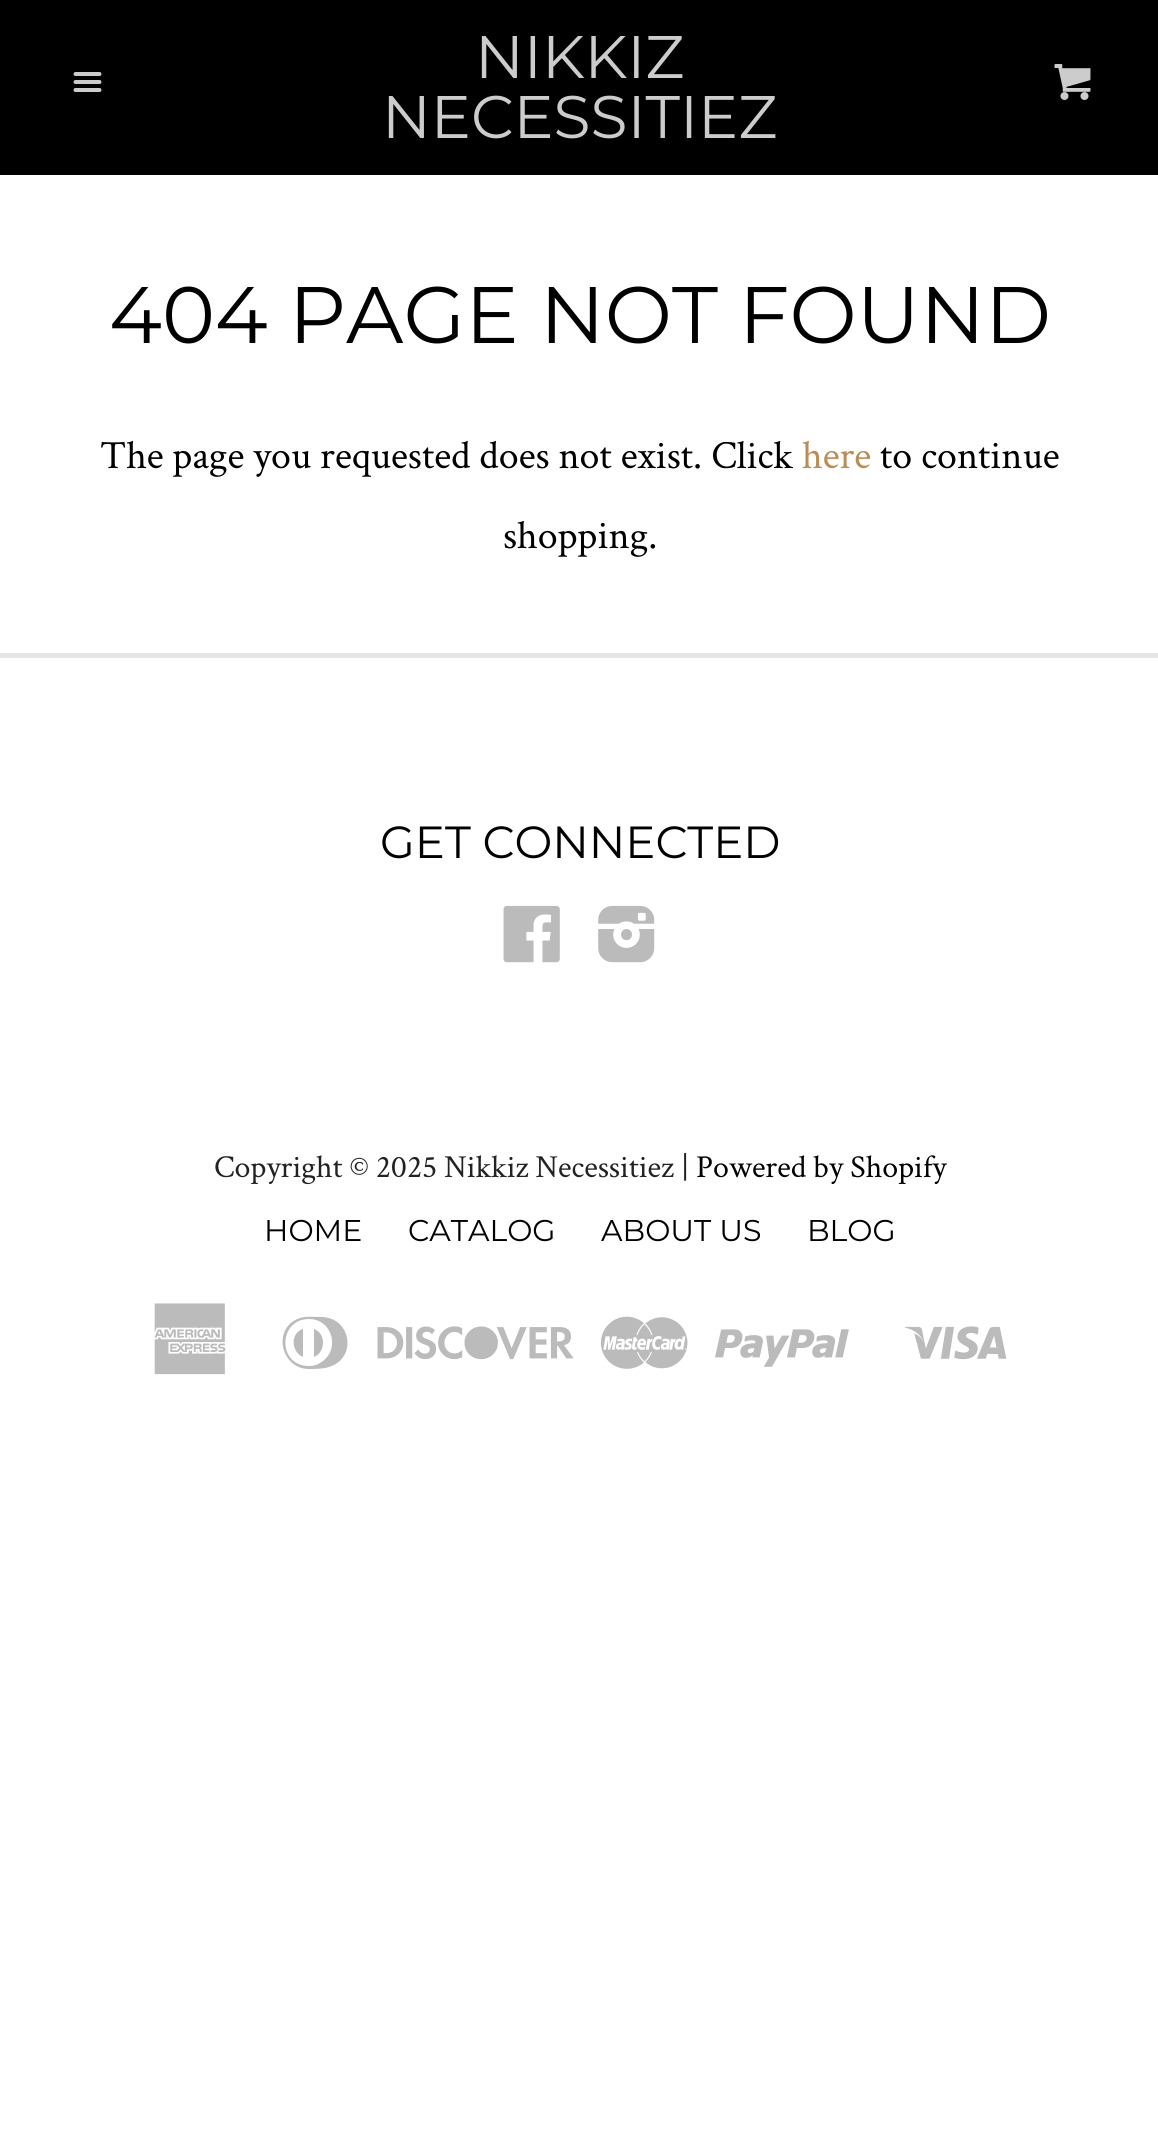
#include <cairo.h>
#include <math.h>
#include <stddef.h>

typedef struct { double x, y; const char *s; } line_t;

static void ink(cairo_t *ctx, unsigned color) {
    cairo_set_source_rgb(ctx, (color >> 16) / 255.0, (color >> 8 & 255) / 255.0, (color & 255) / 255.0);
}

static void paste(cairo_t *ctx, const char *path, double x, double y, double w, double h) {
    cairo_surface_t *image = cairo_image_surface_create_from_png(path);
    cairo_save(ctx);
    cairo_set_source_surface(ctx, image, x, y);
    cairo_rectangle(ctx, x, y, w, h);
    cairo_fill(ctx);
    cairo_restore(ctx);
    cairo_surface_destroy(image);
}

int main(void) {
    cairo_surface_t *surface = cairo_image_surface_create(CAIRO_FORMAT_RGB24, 1158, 2130);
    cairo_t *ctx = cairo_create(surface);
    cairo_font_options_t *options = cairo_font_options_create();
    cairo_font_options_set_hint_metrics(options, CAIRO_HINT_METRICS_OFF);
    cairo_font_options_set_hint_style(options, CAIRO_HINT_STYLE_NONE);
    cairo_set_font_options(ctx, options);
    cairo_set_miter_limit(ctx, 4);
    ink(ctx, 0xFFFFFF);
    cairo_paint(ctx);
    ink(ctx, 0x000000);
    cairo_rectangle(ctx, 0, 0, 1158, 175);
    cairo_fill(ctx);
    paste(ctx, "media/1.png", 73, 72, 29, 20);
    cairo_select_font_face(ctx, "Montserrat Thin", CAIRO_FONT_SLANT_NORMAL, CAIRO_FONT_WEIGHT_NORMAL);
    cairo_set_font_size(ctx, 60);
    ink(ctx, 0xCCCCCC);
    cairo_move_to(ctx, 475, 78);
    cairo_show_text(ctx, "NIKKIZ");
    cairo_move_to(ctx, 382, 138);
    cairo_show_text(ctx, "NECESSITIEZ");
    paste(ctx, "media/2.png", 1054, 64, 37, 36);
    cairo_set_font_size(ctx, 80);
    ink(ctx, 0x000000);
    cairo_move_to(ctx, 109, 343);
    cairo_show_text(ctx, "404 PAGE NOT FOUND");
    cairo_select_font_face(ctx, "Crimson Text", CAIRO_FONT_SLANT_NORMAL, CAIRO_FONT_WEIGHT_NORMAL);
    cairo_set_font_size(ctx, 40);
    cairo_move_to(ctx, 100, 468);
    cairo_show_text(ctx, "The page you requested does not exist. Click");
    ink(ctx, 0xBD8C55);
    cairo_move_to(ctx, 802, 468);
    cairo_show_text(ctx, "here");
    ink(ctx, 0x000000);
    cairo_move_to(ctx, 880, 468);
    cairo_show_text(ctx, "to continue");
    cairo_move_to(ctx, 503, 548);
    cairo_show_text(ctx, "shopping.");
    ink(ctx, 0xE5E5E5);
    cairo_rectangle(ctx, 0, 653, 1158, 5);
    cairo_fill(ctx);
    cairo_select_font_face(ctx, "Montserrat Thin", CAIRO_FONT_SLANT_NORMAL, CAIRO_FONT_WEIGHT_NORMAL);
    cairo_set_font_size(ctx, 45);
    ink(ctx, 0x000000);
    cairo_move_to(ctx, 380, 858);
    cairo_show_text(ctx, "GET CONNECTED");
    paste(ctx, "media/3.png", 503, 905, 57, 58);
    paste(ctx, "media/4.png", 598, 905, 57, 58);
    cairo_select_font_face(ctx, "Crimson Text", CAIRO_FONT_SLANT_NORMAL, CAIRO_FONT_WEIGHT_NORMAL);
    cairo_set_font_size(ctx, 32);
    ink(ctx, 0x222222);
    cairo_move_to(ctx, 214, 1177);
    cairo_show_text(ctx, "Copyright © 2025 Nikkiz Necessitiez |");
    ink(ctx, 0x000000);
    cairo_move_to(ctx, 696, 1177);
    cairo_show_text(ctx, "Powered by Shopify");
    cairo_select_font_face(ctx, "Montserrat Thin", CAIRO_FONT_SLANT_NORMAL, CAIRO_FONT_WEIGHT_NORMAL);
    cairo_set_font_size(ctx, 30);
    {
        static const line_t items[] = {
            {264, 1241, "HOME"},
            {408, 1241, "CATALOG"},
            {601, 1241, "ABOUT US"},
            {807, 1241, "BLOG"},
        };
        for (size_t i = 0; i < sizeof items / sizeof *items; i++) {
            cairo_move_to(ctx, items[i].x, items[i].y);
            cairo_show_text(ctx, items[i].s);
        }
    }
    paste(ctx, "media/5.png", 154, 1303, 72, 72);
    ink(ctx, 0xBBBBBB);
    cairo_new_path(ctx);
    cairo_move_to(ctx, 321, 1317);
    cairo_curve_to(ctx, 351, 1317, 358, 1358, 329, 1367);
    cairo_curve_to(ctx, 323, 1369, 315, 1369, 308, 1369);
    cairo_curve_to(ctx, 280, 1368, 272, 1327, 300, 1318);
    cairo_curve_to(ctx, 306, 1316, 314, 1317, 321, 1317);
    cairo_close_path(ctx);
    cairo_move_to(ctx, 309, 1366);
    cairo_curve_to(ctx, 313, 1366, 317, 1365, 320, 1363);
    cairo_curve_to(ctx, 341, 1351, 333, 1319, 309, 1319);
    cairo_curve_to(ctx, 278, 1319, 277, 1366, 309, 1366);
    cairo_close_path(ctx);
    cairo_move_to(ctx, 303, 1357);
    cairo_curve_to(ctx, 291, 1352, 290, 1333, 303, 1329);
    cairo_close_path(ctx);
    cairo_move_to(ctx, 314, 1329);
    cairo_curve_to(ctx, 326, 1333, 326, 1352, 314, 1357);
    cairo_close_path(ctx);
    cairo_fill(ctx);
    paste(ctx, "media/6.png", 377, 1326, 197, 34);
    paste(ctx, "media/7.png", 600, 1316, 88, 53);
    paste(ctx, "media/8.png", 715, 1329, 134, 38);
    paste(ctx, "media/9.png", 905, 1326, 102, 34);
    cairo_surface_write_to_png(surface, "image.png");
    cairo_font_options_destroy(options);
    cairo_destroy(ctx);
    cairo_surface_destroy(surface);
    return 0;
}
